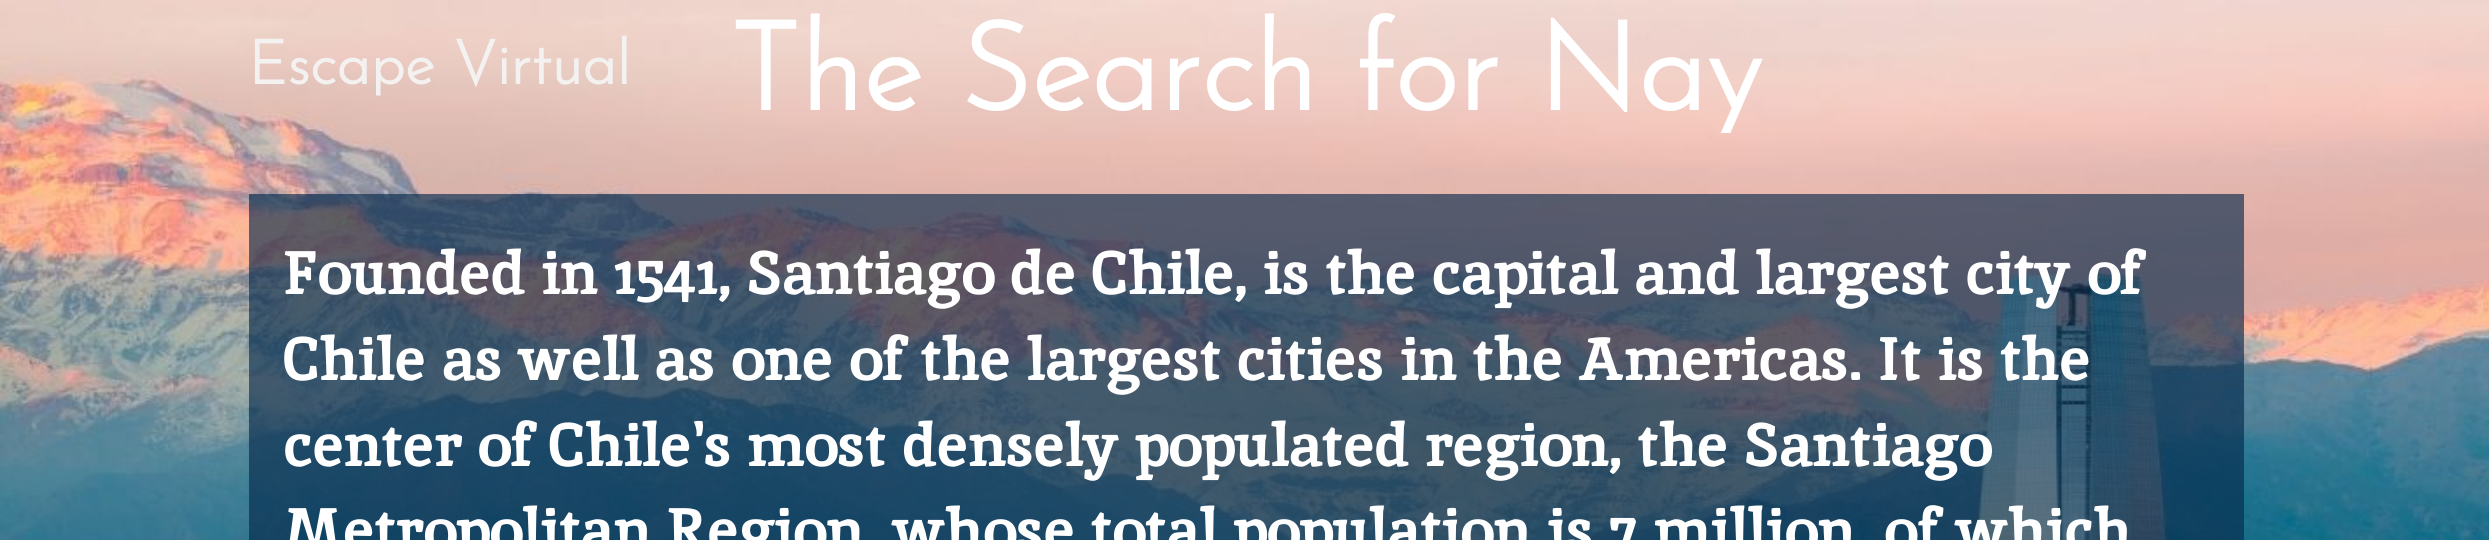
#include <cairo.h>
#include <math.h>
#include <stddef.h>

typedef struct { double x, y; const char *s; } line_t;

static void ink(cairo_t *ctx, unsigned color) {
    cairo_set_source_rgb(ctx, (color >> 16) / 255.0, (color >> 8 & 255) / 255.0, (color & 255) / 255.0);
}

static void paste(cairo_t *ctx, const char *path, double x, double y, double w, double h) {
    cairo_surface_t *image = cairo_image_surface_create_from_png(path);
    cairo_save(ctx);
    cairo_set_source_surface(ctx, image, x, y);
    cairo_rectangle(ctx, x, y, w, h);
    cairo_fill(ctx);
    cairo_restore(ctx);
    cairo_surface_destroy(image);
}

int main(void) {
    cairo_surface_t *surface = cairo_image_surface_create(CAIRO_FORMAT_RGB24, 2489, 540);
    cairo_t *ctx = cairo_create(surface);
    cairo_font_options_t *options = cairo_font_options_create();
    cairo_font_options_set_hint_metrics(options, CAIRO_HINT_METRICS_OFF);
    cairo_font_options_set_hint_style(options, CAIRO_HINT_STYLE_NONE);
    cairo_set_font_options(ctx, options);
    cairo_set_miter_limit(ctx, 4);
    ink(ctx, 0xFFFFFF);
    cairo_paint(ctx);
    paste(ctx, "media/1.png", 0, 0, 2489, 540);
    cairo_select_font_face(ctx, "Josefin Sans", CAIRO_FONT_SLANT_NORMAL, CAIRO_FONT_WEIGHT_BOLD);
    cairo_set_font_size(ctx, 122.5);
    ink(ctx, 0xFFFFFF);
    cairo_move_to(ctx, 729, 110);
    cairo_show_text(ctx, "The Search for Nay");
    cairo_set_source_rgba(ctx, 0.008, 0.149, 0.29, 0.63);
    cairo_rectangle(ctx, 249, 194, 1995, 346);
    cairo_fill(ctx);
    cairo_select_font_face(ctx, "Inika", CAIRO_FONT_SLANT_NORMAL, CAIRO_FONT_WEIGHT_BOLD);
    cairo_set_font_size(ctx, 61.25);
    ink(ctx, 0xFFFFFF);
    {
        static const line_t items[] = {
            {283, 294, "Founded in 1541, Santiago de Chile, is the capital and largest city of"},
            {283, 380, "Chile as well as one of the largest cities in the Americas. It is the"},
            {283, 466, "center of Chile's most densely populated region, the Santiago"},
            {283, 551, "Metropolitan Region, whose total population is 7 million, of which"},
        };
        for (size_t i = 0; i < sizeof items / sizeof *items; i++) {
            cairo_move_to(ctx, items[i].x, items[i].y);
            cairo_show_text(ctx, items[i].s);
        }
    }
    cairo_select_font_face(ctx, "Josefin Sans", CAIRO_FONT_SLANT_NORMAL, CAIRO_FONT_WEIGHT_BOLD);
    ink(ctx, 0xF4F1F1);
    cairo_move_to(ctx, 248, 84);
    cairo_show_text(ctx, "Escape Virtual");
    cairo_surface_write_to_png(surface, "image.png");
    cairo_font_options_destroy(options);
    cairo_destroy(ctx);
    cairo_surface_destroy(surface);
    return 0;
}
